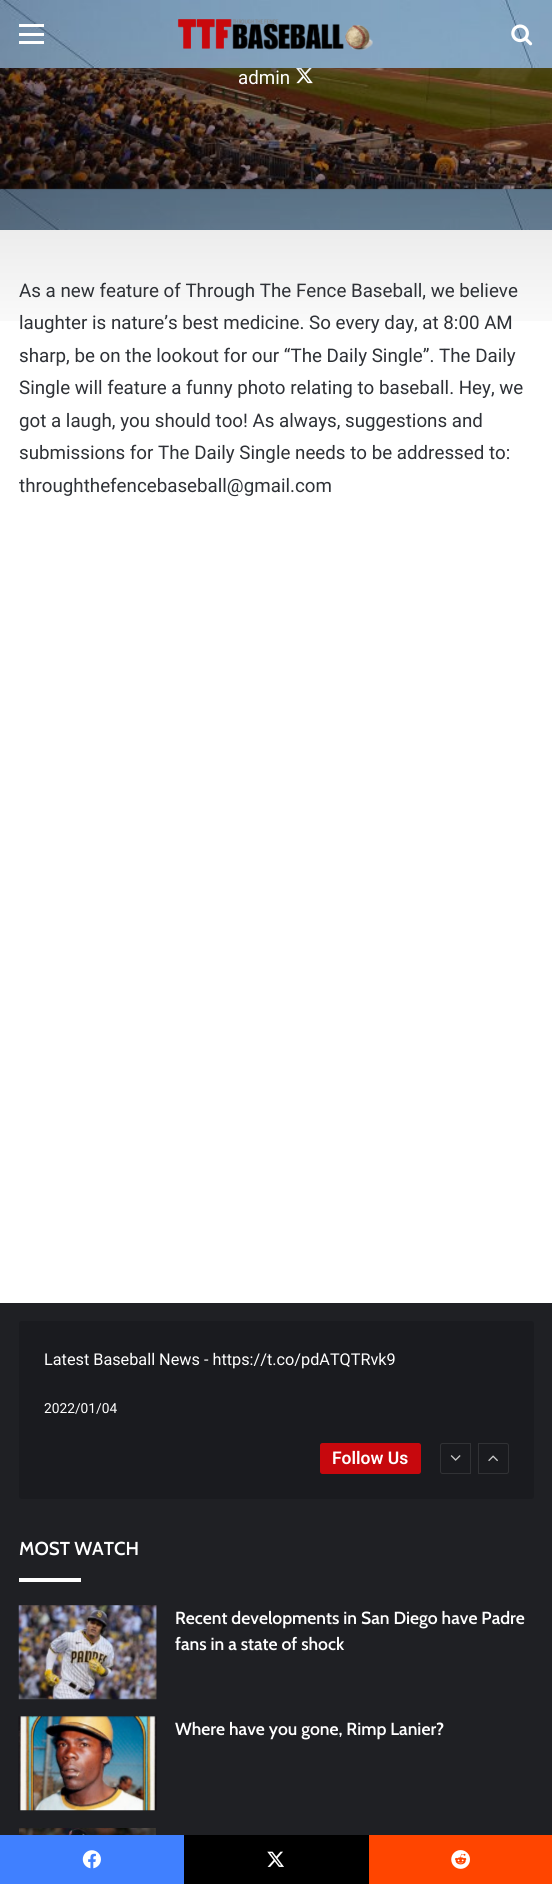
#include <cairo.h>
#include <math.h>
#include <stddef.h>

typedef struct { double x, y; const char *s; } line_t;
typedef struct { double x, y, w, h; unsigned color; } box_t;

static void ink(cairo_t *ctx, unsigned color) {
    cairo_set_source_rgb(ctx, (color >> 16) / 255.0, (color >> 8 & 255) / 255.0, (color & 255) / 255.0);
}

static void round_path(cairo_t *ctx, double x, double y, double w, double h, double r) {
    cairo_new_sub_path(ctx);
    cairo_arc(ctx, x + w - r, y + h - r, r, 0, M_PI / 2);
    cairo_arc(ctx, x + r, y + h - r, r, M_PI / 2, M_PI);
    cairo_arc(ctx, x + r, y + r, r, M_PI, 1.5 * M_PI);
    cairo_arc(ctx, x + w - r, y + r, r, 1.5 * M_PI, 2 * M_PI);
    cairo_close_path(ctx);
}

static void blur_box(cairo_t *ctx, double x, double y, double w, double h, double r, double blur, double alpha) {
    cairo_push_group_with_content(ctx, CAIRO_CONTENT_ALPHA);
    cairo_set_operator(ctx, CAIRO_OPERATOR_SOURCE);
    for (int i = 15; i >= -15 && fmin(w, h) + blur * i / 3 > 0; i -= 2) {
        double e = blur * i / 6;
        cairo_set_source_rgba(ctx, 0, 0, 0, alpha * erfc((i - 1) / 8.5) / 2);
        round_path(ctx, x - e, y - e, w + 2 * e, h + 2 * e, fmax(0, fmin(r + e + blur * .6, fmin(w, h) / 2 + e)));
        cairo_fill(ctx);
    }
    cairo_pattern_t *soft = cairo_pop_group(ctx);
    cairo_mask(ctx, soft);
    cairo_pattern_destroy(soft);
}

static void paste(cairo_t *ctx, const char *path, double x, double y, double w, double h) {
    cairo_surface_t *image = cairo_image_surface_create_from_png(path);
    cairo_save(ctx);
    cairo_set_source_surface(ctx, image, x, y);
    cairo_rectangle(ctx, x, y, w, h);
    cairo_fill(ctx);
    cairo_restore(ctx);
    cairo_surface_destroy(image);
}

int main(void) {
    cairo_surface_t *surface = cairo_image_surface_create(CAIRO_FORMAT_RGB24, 552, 1884);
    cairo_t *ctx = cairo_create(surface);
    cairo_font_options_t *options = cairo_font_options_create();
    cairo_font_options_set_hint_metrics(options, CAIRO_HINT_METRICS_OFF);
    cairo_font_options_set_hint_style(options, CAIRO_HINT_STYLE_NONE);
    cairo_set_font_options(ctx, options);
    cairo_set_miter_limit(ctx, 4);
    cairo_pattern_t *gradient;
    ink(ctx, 0xFFFFFF);
    cairo_paint(ctx);
    paste(ctx, "media/1.png", 0, 68, 552, 162);
    gradient = cairo_pattern_create_linear(276, 359, 276, -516);
    cairo_pattern_add_color_stop_rgba(gradient, 0, 0, 0, 0, 0);
    cairo_pattern_add_color_stop_rgba(gradient, 1, 0, 0, 0, 0.5);
    cairo_set_source(ctx, gradient);
    cairo_pattern_destroy(gradient);
    cairo_rectangle(ctx, 0, 68, 552, 253);
    cairo_fill(ctx);
    paste(ctx, "media/5.png", 296, 68, 17, 16);
    ink(ctx, 0x636363);
    blur_box(ctx, 0, 3, 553, 67, 0, 5, 0.2);
    paste(ctx, "media/2.png", 0, 0, 552, 68);
    {
        static const box_t items[] = {
            {19, 33, 25, 3, 0xFFFFFF},
            {19, 24, 25, 3, 0xFFFFFF},
            {19, 41, 25, 3, 0xFFFFFF},
        };
        for (size_t i = 0; i < sizeof items / sizeof *items; i++) {
            ink(ctx, items[i].color);
            cairo_rectangle(ctx, items[i].x, items[i].y, items[i].w, items[i].h);
            cairo_fill(ctx);
        }
    }
    paste(ctx, "media/3.png", 177, 19, 196, 31);
    paste(ctx, "media/4.png", 511, 24, 22, 22);
    cairo_select_font_face(ctx, "Roboto", CAIRO_FONT_SLANT_NORMAL, CAIRO_FONT_WEIGHT_NORMAL);
    cairo_set_font_size(ctx, 18.75);
    cairo_move_to(ctx, 238, 84);
    cairo_show_text(ctx, "admin");
    ink(ctx, 0x2E3136);
    {
        static const line_t items[] = {
            {19, 297, "As a new feature of Through The Fence Baseball, we believe"},
            {19, 329, "laughter is nature’s best medicine. So every day, at 8:00 AM"},
            {19, 362, "sharp, be on the lookout for our “The Daily Single”. The Daily"},
            {19, 394, "Single will feature a funny photo relating to baseball. Hey, we"},
            {19, 427, "got a laugh, you should too! As always, suggestions and"},
            {19, 459, "submissions for The Daily Single needs to be addressed to:"},
            {19, 492, "throughthefencebaseball@gmail.com"},
        };
        for (size_t i = 0; i < sizeof items / sizeof *items; i++) {
            cairo_move_to(ctx, items[i].x, items[i].y);
            cairo_show_text(ctx, items[i].s);
        }
    }
    ink(ctx, 0x1F2024);
    cairo_rectangle(ctx, 0, 1303, 552, 532);
    cairo_fill(ctx);
    ink(ctx, 0x1A1B1F);
    round_path(ctx, 19, 1321, 515, 178, 2.5);
    cairo_fill(ctx);
    cairo_set_font_size(ctx, 16.25);
    ink(ctx, 0xFFFFFF);
    cairo_move_to(ctx, 44, 1365);
    cairo_show_text(ctx, "Latest Baseball News - https://t.co/pdATQTRvk9");
    cairo_set_font_size(ctx, 13.75);
    cairo_move_to(ctx, 44, 1413);
    cairo_show_text(ctx, "2022/01/04");
    ink(ctx, 0xC7080D);
    round_path(ctx, 320, 1443, 101, 31, 2.5);
    cairo_fill(ctx);
    cairo_select_font_face(ctx, "Roboto SemiBold", CAIRO_FONT_SLANT_NORMAL, CAIRO_FONT_WEIGHT_NORMAL);
    cairo_set_font_size(ctx, 17.5);
    ink(ctx, 0xFFFFFF);
    cairo_move_to(ctx, 332, 1464);
    cairo_show_text(ctx, "Follow Us");
    cairo_new_path(ctx);
    cairo_move_to(ctx, 442.5, 1443.5);
    cairo_line_to(ctx, 470.5, 1443.5);
    cairo_line_to(ctx, 470.5, 1473.5);
    cairo_line_to(ctx, 442.5, 1473.5);
    cairo_curve_to(ctx, 441.5, 1473.5, 440.5, 1472.5, 440.5, 1471.5);
    cairo_line_to(ctx, 440.5, 1445.5);
    cairo_curve_to(ctx, 440.5, 1444.5, 441.5, 1443.5, 442.5, 1443.5);
    cairo_close_path(ctx);
    ink(ctx, 0x313235);
    cairo_set_line_width(ctx, 1);
    cairo_stroke(ctx);
    paste(ctx, "media/6.png", 450, 1455, 11, 6);
    cairo_new_path(ctx);
    cairo_move_to(ctx, 478.5, 1443.5);
    cairo_line_to(ctx, 506.5, 1443.5);
    cairo_curve_to(ctx, 507.5, 1443.5, 508.5, 1444.5, 508.5, 1445.5);
    cairo_line_to(ctx, 508.5, 1471.5);
    cairo_curve_to(ctx, 508.5, 1472.5, 507.5, 1473.5, 506.5, 1473.5);
    cairo_line_to(ctx, 478.5, 1473.5);
    cairo_close_path(ctx);
    cairo_stroke(ctx);
    paste(ctx, "media/7.png", 488, 1455, 10, 7);
    cairo_select_font_face(ctx, "Cabin SemiBold", CAIRO_FONT_SLANT_NORMAL, CAIRO_FONT_WEIGHT_NORMAL);
    cairo_set_font_size(ctx, 18.75);
    ink(ctx, 0xFFFFFF);
    cairo_move_to(ctx, 19, 1555);
    cairo_show_text(ctx, "MOST WATCH");
    ink(ctx, 0xFDFDFD);
    cairo_rectangle(ctx, 19, 1578, 62, 4);
    cairo_fill(ctx);
    paste(ctx, "media/8.png", 18, 1605, 139, 95);
    cairo_set_font_size(ctx, 17.5);
    ink(ctx, 0xFFFFFF);
    cairo_move_to(ctx, 175, 1624);
    cairo_show_text(ctx, "Recent developments in San Diego have Padre");
    cairo_move_to(ctx, 175, 1650);
    cairo_show_text(ctx, "fans in a state of shock");
    paste(ctx, "media/9.png", 18, 1716, 139, 95);
    cairo_move_to(ctx, 175, 1735);
    cairo_show_text(ctx, "Where have you gone, Rimp Lanier?");
    paste(ctx, "media/10.png", 19, 1828, 137, 7);
    ink(ctx, 0x4080FF);
    cairo_rectangle(ctx, 0, 1835, 184, 49);
    cairo_fill(ctx);
    paste(ctx, "media/11.png", 82, 1850, 19, 19);
    ink(ctx, 0x000000);
    cairo_rectangle(ctx, 184, 1835, 185, 49);
    cairo_fill(ctx);
    paste(ctx, "media/12.png", 267, 1851, 17, 16);
    ink(ctx, 0xFF4500);
    cairo_rectangle(ctx, 369, 1835, 183, 49);
    cairo_fill(ctx);
    paste(ctx, "media/13.png", 451, 1850, 19, 19);
    cairo_surface_write_to_png(surface, "image.png");
    cairo_font_options_destroy(options);
    cairo_destroy(ctx);
    cairo_surface_destroy(surface);
    return 0;
}
